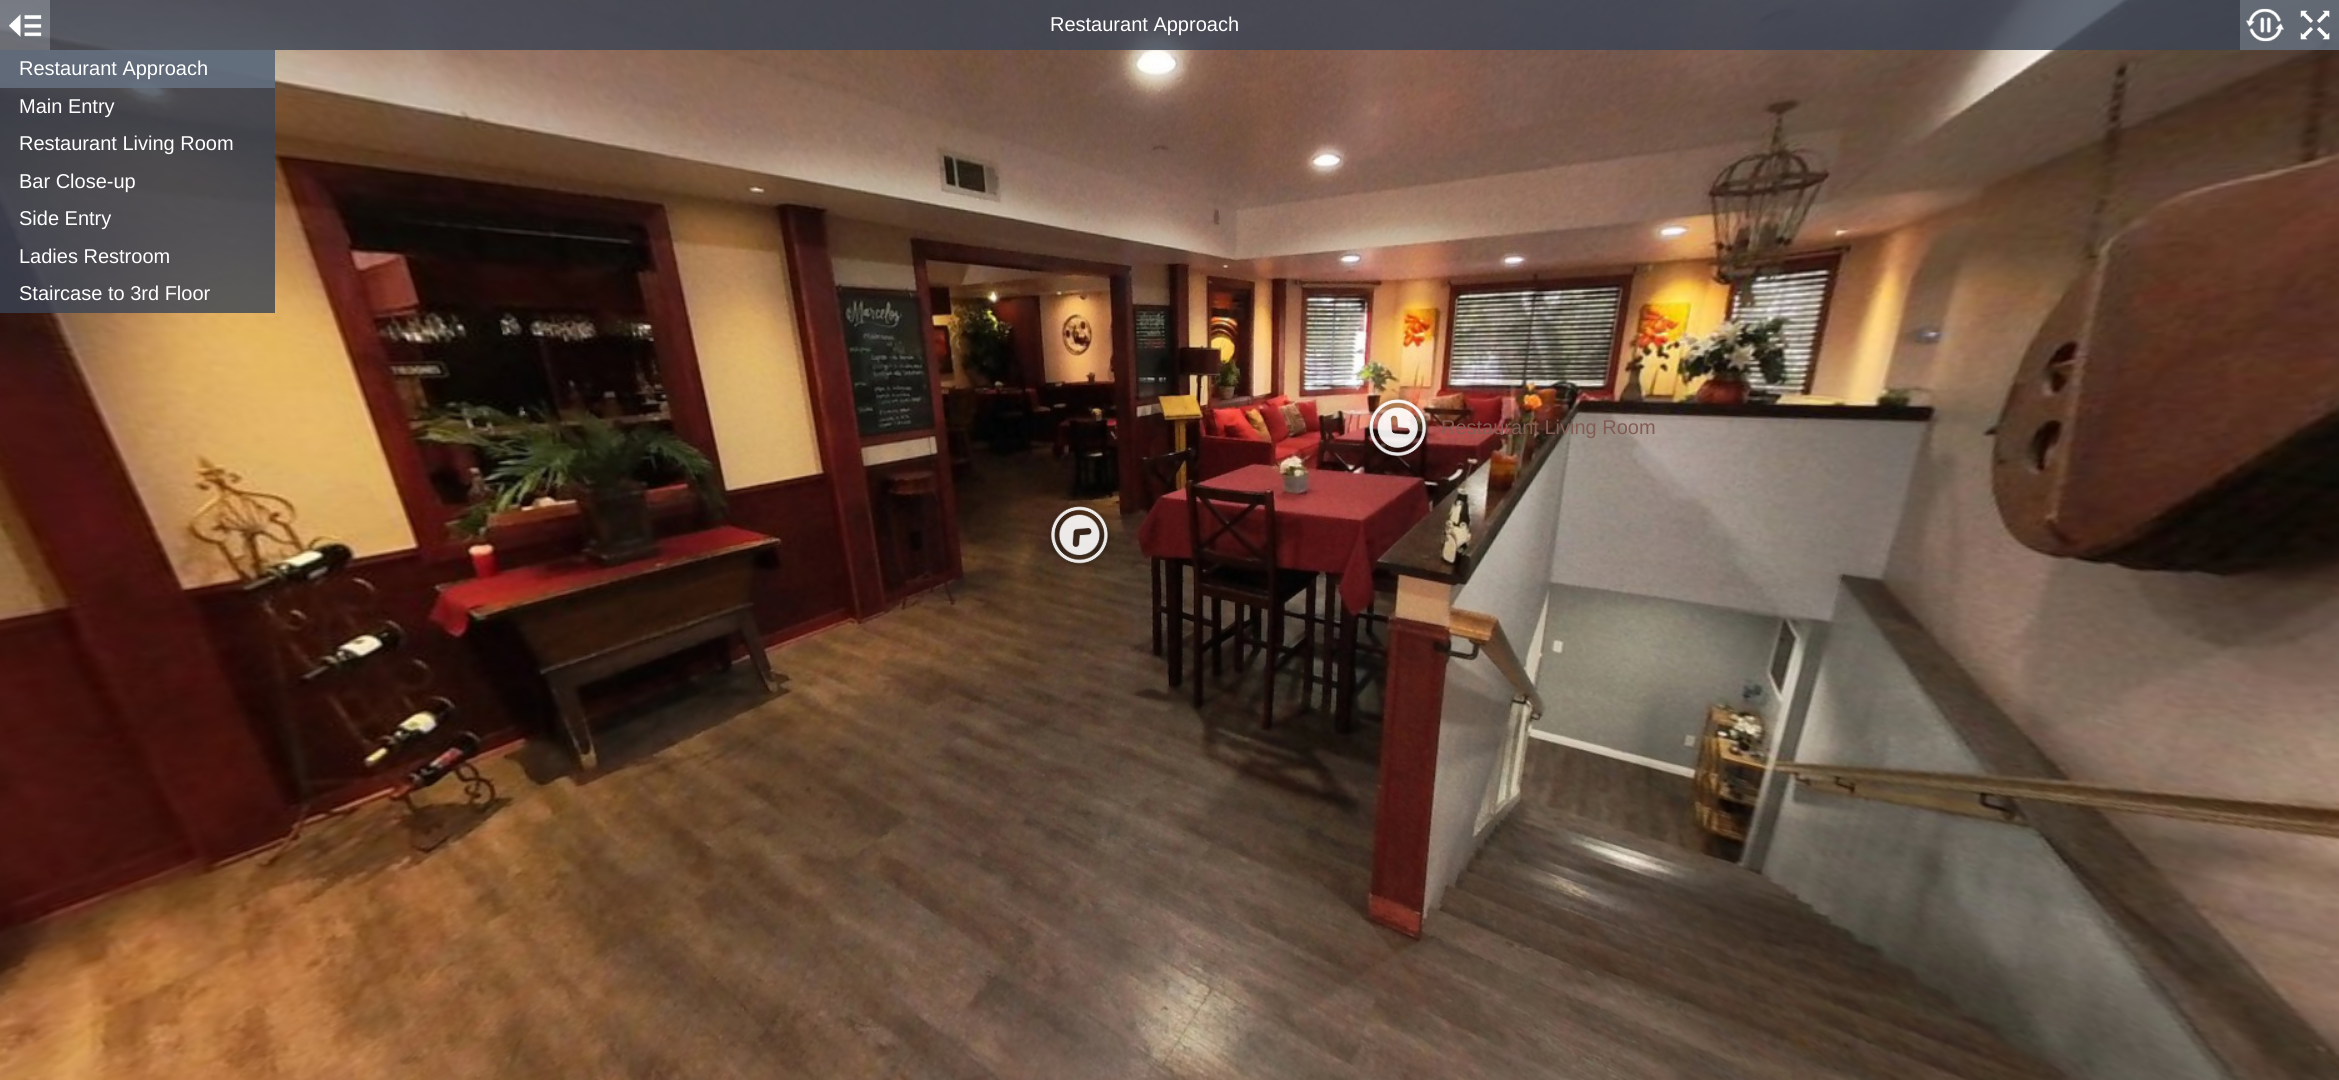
#include <cairo.h>
#include <math.h>
#include <stddef.h>

typedef struct { double x, y; const char *s; } line_t;

static void ink(cairo_t *ctx, unsigned color) {
    cairo_set_source_rgb(ctx, (color >> 16) / 255.0, (color >> 8 & 255) / 255.0, (color & 255) / 255.0);
}

static void paste(cairo_t *ctx, const char *path, double x, double y, double w, double h) {
    cairo_surface_t *image = cairo_image_surface_create_from_png(path);
    cairo_save(ctx);
    cairo_set_source_surface(ctx, image, x, y);
    cairo_rectangle(ctx, x, y, w, h);
    cairo_fill(ctx);
    cairo_restore(ctx);
    cairo_surface_destroy(image);
}

int main(void) {
    cairo_surface_t *surface = cairo_image_surface_create(CAIRO_FORMAT_RGB24, 2339, 1080);
    cairo_t *ctx = cairo_create(surface);
    cairo_font_options_t *options = cairo_font_options_create();
    cairo_font_options_set_hint_metrics(options, CAIRO_HINT_METRICS_OFF);
    cairo_font_options_set_hint_style(options, CAIRO_HINT_STYLE_NONE);
    cairo_set_font_options(ctx, options);
    cairo_set_miter_limit(ctx, 4);
    ink(ctx, 0xFFFFFF);
    cairo_paint(ctx);
    paste(ctx, "media/4.png", 0, 0, 2339, 1080);
    cairo_set_source_rgba(ctx, 0.404, 0.451, 0.514, 0.8);
    cairo_rectangle(ctx, 0, 0, 50, 50);
    cairo_fill(ctx);
    paste(ctx, "media/1.png", 9, 14, 33, 23);
    cairo_set_source_rgba(ctx, 0.227, 0.267, 0.329, 0.8);
    cairo_rectangle(ctx, 50, 0, 2190, 50);
    cairo_fill(ctx);
    cairo_select_font_face(ctx, "Liberation Sans", CAIRO_FONT_SLANT_NORMAL, CAIRO_FONT_WEIGHT_NORMAL);
    cairo_set_font_size(ctx, 20);
    ink(ctx, 0xFFFFFF);
    cairo_move_to(ctx, 1050, 31);
    cairo_show_text(ctx, "Restaurant Approach");
    cairo_set_source_rgba(ctx, 0.404, 0.451, 0.514, 0.8);
    cairo_rectangle(ctx, 2240, 0, 50, 50);
    cairo_fill(ctx);
    paste(ctx, "media/2.png", 2246, 8, 38, 34);
    cairo_rectangle(ctx, 2290, 0, 49, 50);
    cairo_fill(ctx);
    paste(ctx, "media/3.png", 2300, 10, 30, 30);
    cairo_set_source_rgba(ctx, 0.227, 0.267, 0.329, 0.8);
    cairo_rectangle(ctx, 0, 50, 275, 263);
    cairo_fill(ctx);
    cairo_set_source_rgba(ctx, 0.404, 0.451, 0.514, 0.8);
    cairo_rectangle(ctx, 0, 50, 275, 38);
    cairo_fill(ctx);
    ink(ctx, 0xFFFFFF);
    {
        static const line_t items[] = {
            {19, 75, "Restaurant Approach"},
            {19, 113, "Main Entry"},
            {19, 150, "Restaurant Living Room"},
            {19, 188, "Bar Close-up"},
            {19, 225, "Side Entry"},
            {19, 263, "Ladies Restroom"},
            {19, 300, "Staircase to 3rd Floor"},
        };
        for (size_t i = 0; i < sizeof items / sizeof *items; i++) {
            cairo_move_to(ctx, items[i].x, items[i].y);
            cairo_show_text(ctx, items[i].s);
        }
    }
    paste(ctx, "media/5.png", 1364, 394, 67, 65);
    ink(ctx, 0x825B53);
    cairo_move_to(ctx, 1441, 434);
    cairo_show_text(ctx, "Restaurant Living Room");
    paste(ctx, "media/6.png", 1048, 503, 63, 64);
    cairo_surface_write_to_png(surface, "image.png");
    cairo_font_options_destroy(options);
    cairo_destroy(ctx);
    cairo_surface_destroy(surface);
    return 0;
}
